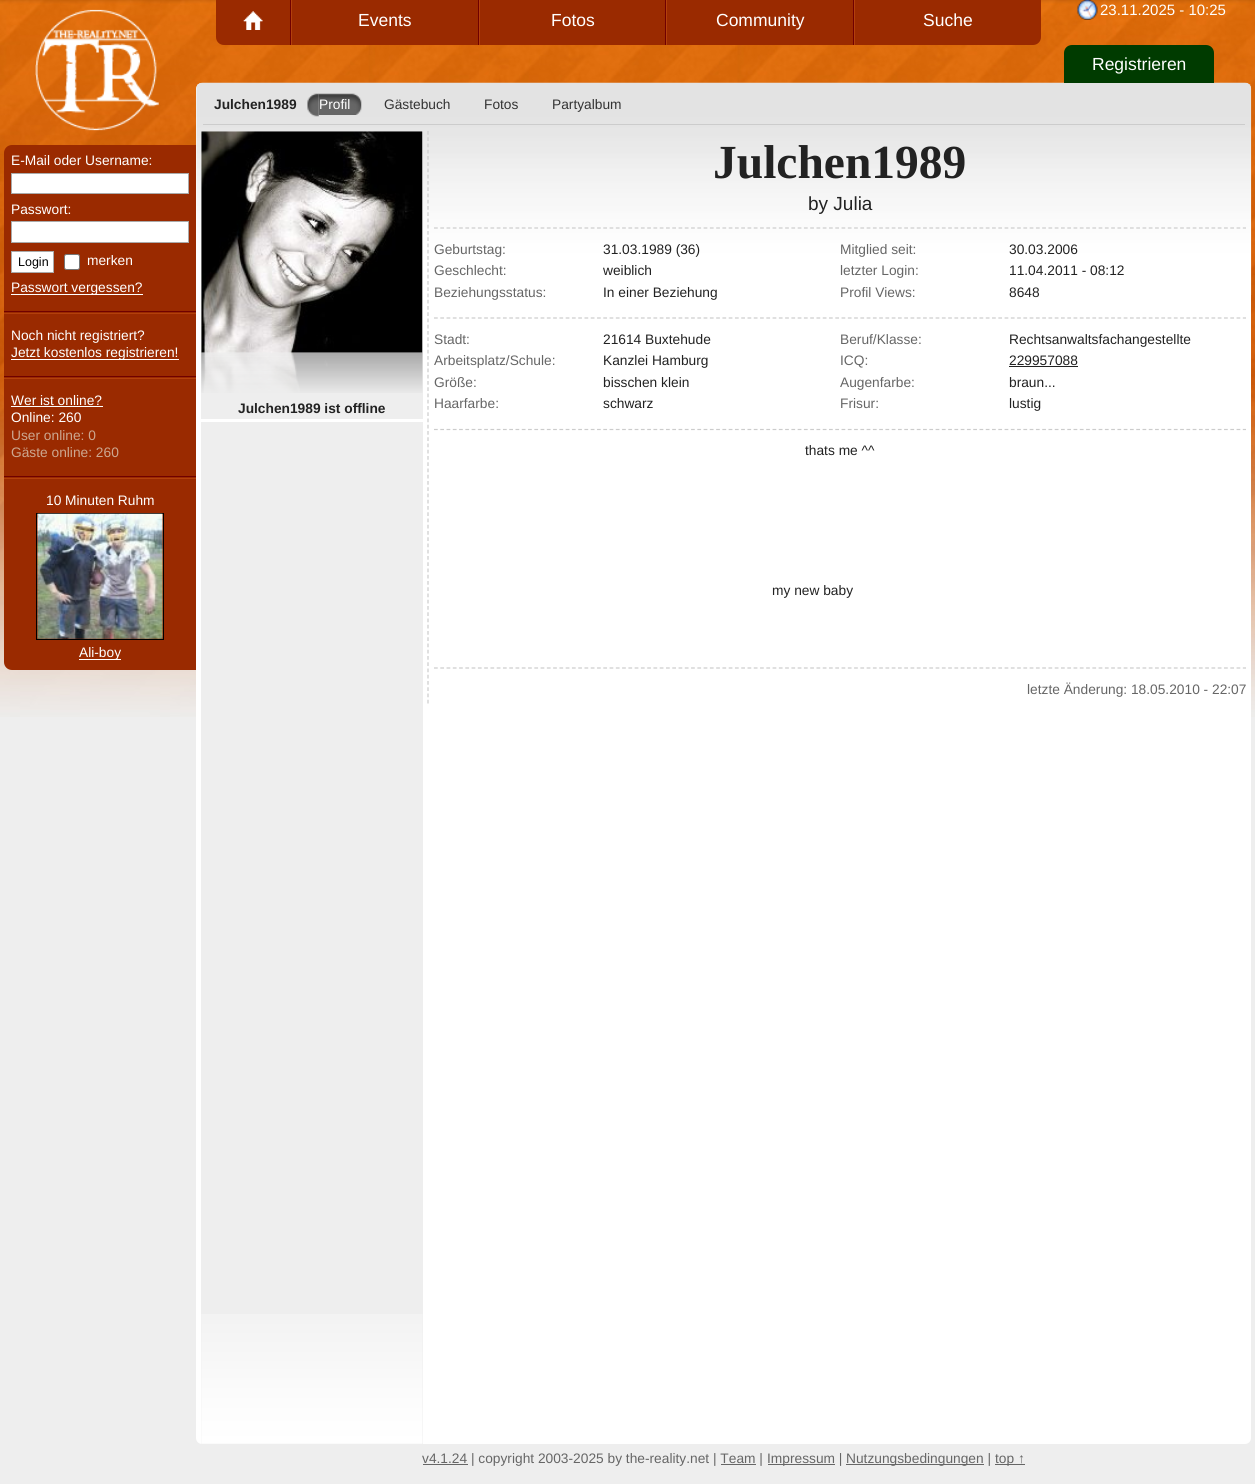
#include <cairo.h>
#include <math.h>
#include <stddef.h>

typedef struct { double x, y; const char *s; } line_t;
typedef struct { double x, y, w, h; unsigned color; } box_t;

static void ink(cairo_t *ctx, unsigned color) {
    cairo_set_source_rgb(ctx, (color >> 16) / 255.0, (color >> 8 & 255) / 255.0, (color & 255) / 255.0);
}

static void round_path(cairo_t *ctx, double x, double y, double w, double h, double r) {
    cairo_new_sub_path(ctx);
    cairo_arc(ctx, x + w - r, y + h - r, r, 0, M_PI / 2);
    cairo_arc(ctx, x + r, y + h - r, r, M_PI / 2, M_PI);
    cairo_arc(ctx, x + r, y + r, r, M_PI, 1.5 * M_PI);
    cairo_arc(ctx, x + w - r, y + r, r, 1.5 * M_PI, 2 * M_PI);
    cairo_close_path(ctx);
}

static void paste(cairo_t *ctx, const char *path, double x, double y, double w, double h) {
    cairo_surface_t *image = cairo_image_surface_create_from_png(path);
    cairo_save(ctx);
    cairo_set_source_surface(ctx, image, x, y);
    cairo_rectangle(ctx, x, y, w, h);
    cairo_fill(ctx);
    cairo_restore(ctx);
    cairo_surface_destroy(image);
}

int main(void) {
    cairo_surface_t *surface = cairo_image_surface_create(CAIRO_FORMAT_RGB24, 1255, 1484);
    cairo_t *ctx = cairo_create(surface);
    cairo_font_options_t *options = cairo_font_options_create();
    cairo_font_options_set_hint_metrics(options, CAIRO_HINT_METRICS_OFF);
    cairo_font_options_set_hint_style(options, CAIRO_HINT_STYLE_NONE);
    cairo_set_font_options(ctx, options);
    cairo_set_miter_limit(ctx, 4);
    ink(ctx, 0xEEEEEE);
    cairo_paint(ctx);
    paste(ctx, "media/1.png", 0, 0, 1255, 717);
    paste(ctx, "media/2.png", 35, 9, 124, 122);
    ink(ctx, 0x9A2A00);
    cairo_new_path(ctx);
    cairo_move_to(ctx, 216, -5);
    cairo_line_to(ctx, 291, -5);
    cairo_line_to(ctx, 291, 45);
    cairo_line_to(ctx, 224, 45);
    cairo_curve_to(ctx, 219.5, 45, 216, 41.5, 216, 37);
    cairo_close_path(ctx);
    cairo_fill(ctx);
    paste(ctx, "media/3.png", 243, 11, 20, 19);
    {
        static const box_t items[] = {
            {290, 0, 1, 45, 0x700000},
            {292, 0, 186, 45, 0x9A2A00},
            {478, 0, 1, 45, 0x700000},
            {291, 0, 1, 45, 0xB3400C},
        };
        for (size_t i = 0; i < sizeof items / sizeof *items; i++) {
            ink(ctx, items[i].color);
            cairo_rectangle(ctx, items[i].x, items[i].y, items[i].w, items[i].h);
            cairo_fill(ctx);
        }
    }
    cairo_select_font_face(ctx, "Liberation Sans", CAIRO_FONT_SLANT_NORMAL, CAIRO_FONT_WEIGHT_NORMAL);
    cairo_set_font_size(ctx, 17.5);
    ink(ctx, 0xFFFFFF);
    cairo_move_to(ctx, 358, 26);
    cairo_show_text(ctx, "Events");
    {
        static const box_t items[] = {
            {480, 0, 185, 45, 0x9A2A00},
            {665, 0, 1, 45, 0x700000},
            {479, 0, 1, 45, 0xB3400C},
        };
        for (size_t i = 0; i < sizeof items / sizeof *items; i++) {
            ink(ctx, items[i].color);
            cairo_rectangle(ctx, items[i].x, items[i].y, items[i].w, items[i].h);
            cairo_fill(ctx);
        }
    }
    ink(ctx, 0xFFFFFF);
    cairo_move_to(ctx, 551, 26);
    cairo_show_text(ctx, "Fotos");
    {
        static const box_t items[] = {
            {667, 0, 186, 45, 0x9A2A00},
            {853, 0, 1, 45, 0x700000},
            {666, 0, 1, 45, 0xB3400C},
        };
        for (size_t i = 0; i < sizeof items / sizeof *items; i++) {
            ink(ctx, items[i].color);
            cairo_rectangle(ctx, items[i].x, items[i].y, items[i].w, items[i].h);
            cairo_fill(ctx);
        }
    }
    ink(ctx, 0xFFFFFF);
    cairo_move_to(ctx, 716, 26);
    cairo_show_text(ctx, "Community");
    ink(ctx, 0x9A2A00);
    cairo_new_path(ctx);
    cairo_move_to(ctx, 854, -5);
    cairo_line_to(ctx, 1041, -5);
    cairo_line_to(ctx, 1041, 37);
    cairo_curve_to(ctx, 1041, 41.5, 1037.5, 45, 1033, 45);
    cairo_line_to(ctx, 854, 45);
    cairo_close_path(ctx);
    cairo_fill(ctx);
    ink(ctx, 0xB3400C);
    cairo_rectangle(ctx, 854, 0, 1, 45);
    cairo_fill(ctx);
    ink(ctx, 0xFFFFFF);
    cairo_move_to(ctx, 923, 26);
    cairo_show_text(ctx, "Suche");
    paste(ctx, "media/4.png", 1077, 0, 21, 20);
    cairo_set_font_size(ctx, 15);
    cairo_move_to(ctx, 1100, 15);
    cairo_show_text(ctx, "23.11.2025 - 10:25");
    round_path(ctx, 196, 83, 1055, 1361, 6);
    cairo_fill(ctx);
    paste(ctx, "media/6.png", 196, 82, 1056, 213);
    ink(ctx, 0x003B00);
    cairo_new_path(ctx);
    cairo_move_to(ctx, 1072, 45);
    cairo_line_to(ctx, 1206, 45);
    cairo_curve_to(ctx, 1210.5, 45, 1214, 48.5, 1214, 53);
    cairo_line_to(ctx, 1214, 83);
    cairo_line_to(ctx, 1064, 83);
    cairo_line_to(ctx, 1064, 53);
    cairo_curve_to(ctx, 1064, 48.5, 1067.5, 45, 1072, 45);
    cairo_close_path(ctx);
    cairo_fill(ctx);
    cairo_set_font_size(ctx, 17.5);
    ink(ctx, 0xFFFFFF);
    cairo_move_to(ctx, 1092, 70);
    cairo_show_text(ctx, "Registrieren");
    ink(ctx, 0x9A2A00);
    cairo_new_path(ctx);
    cairo_move_to(ctx, 12, 145);
    cairo_line_to(ctx, 196, 145);
    cairo_line_to(ctx, 196, 670);
    cairo_line_to(ctx, 12, 670);
    cairo_curve_to(ctx, 7.5, 670, 4, 666.5, 4, 662);
    cairo_line_to(ctx, 4, 153);
    cairo_curve_to(ctx, 4, 148.5, 7.5, 145, 12, 145);
    cairo_close_path(ctx);
    cairo_fill(ctx);
    cairo_set_font_size(ctx, 13.75);
    ink(ctx, 0xFFFFFF);
    cairo_move_to(ctx, 11, 165);
    cairo_show_text(ctx, "E-Mail oder Username:");
    cairo_rectangle(ctx, 11.5, 173.5, 177, 20);
    cairo_fill_preserve(ctx);
    ink(ctx, 0xAAAAAA);
    cairo_set_line_width(ctx, 1);
    cairo_stroke(ctx);
    ink(ctx, 0xFFFFFF);
    cairo_move_to(ctx, 11, 214);
    cairo_show_text(ctx, "Passwort:");
    cairo_rectangle(ctx, 11.5, 221.5, 177, 21);
    cairo_fill_preserve(ctx);
    ink(ctx, 0xAAAAAA);
    cairo_stroke(ctx);
    ink(ctx, 0xFFFFFF);
    cairo_rectangle(ctx, 11.5, 251.5, 42, 21);
    cairo_fill_preserve(ctx);
    ink(ctx, 0xAAAAAA);
    cairo_stroke(ctx);
    cairo_set_font_size(ctx, 12.5);
    ink(ctx, 0x000000);
    cairo_move_to(ctx, 18, 266);
    cairo_show_text(ctx, "Login");
    ink(ctx, 0xFFFFFF);
    round_path(ctx, 64.5, 254.5, 15, 15, 2);
    cairo_fill_preserve(ctx);
    ink(ctx, 0x767676);
    cairo_stroke(ctx);
    cairo_set_font_size(ctx, 13.75);
    ink(ctx, 0xFFFFFF);
    cairo_move_to(ctx, 87, 265);
    cairo_show_text(ctx, "merken");
    cairo_rectangle(ctx, 11, 294, 132, 1);
    cairo_fill(ctx);
    cairo_move_to(ctx, 11, 292);
    cairo_show_text(ctx, "Passwort vergessen?");
    ink(ctx, 0x700000);
    cairo_rectangle(ctx, 4, 311, 192, 1);
    cairo_fill(ctx);
    ink(ctx, 0xB3400C);
    cairo_rectangle(ctx, 4, 313, 192, 1);
    cairo_fill(ctx);
    ink(ctx, 0xFFFFFF);
    cairo_move_to(ctx, 11, 340);
    cairo_show_text(ctx, "Noch nicht registriert?");
    cairo_rectangle(ctx, 11, 359, 168, 1);
    cairo_fill(ctx);
    cairo_move_to(ctx, 11, 357);
    cairo_show_text(ctx, "Jetzt kostenlos registrieren!");
    ink(ctx, 0x700000);
    cairo_rectangle(ctx, 4, 376, 192, 1);
    cairo_fill(ctx);
    ink(ctx, 0xB3400C);
    cairo_rectangle(ctx, 4, 378, 192, 1);
    cairo_fill(ctx);
    ink(ctx, 0xFFFFFF);
    cairo_move_to(ctx, 11, 405);
    cairo_show_text(ctx, "Wer ist online?");
    cairo_rectangle(ctx, 11, 406, 92, 1);
    cairo_fill(ctx);
    cairo_move_to(ctx, 11, 422);
    cairo_show_text(ctx, "Online: 260");
    ink(ctx, 0xCCA790);
    cairo_move_to(ctx, 11, 440);
    cairo_show_text(ctx, "User online: 0");
    cairo_move_to(ctx, 11, 457);
    cairo_show_text(ctx, "Gäste online: 260");
    ink(ctx, 0x700000);
    cairo_rectangle(ctx, 4, 476, 192, 1);
    cairo_fill(ctx);
    ink(ctx, 0xB3400C);
    cairo_rectangle(ctx, 4, 478, 192, 1);
    cairo_fill(ctx);
    ink(ctx, 0xFFFFFF);
    cairo_move_to(ctx, 46, 505);
    cairo_show_text(ctx, "10 Minuten Ruhm");
    cairo_rectangle(ctx, 36.5, 513.5, 127, 126);
    ink(ctx, 0x000000);
    cairo_stroke(ctx);
    paste(ctx, "media/5.png", 37, 513, 126, 126);
    ink(ctx, 0xFFFFFF);
    cairo_rectangle(ctx, 79, 659, 42, 1);
    cairo_fill(ctx);
    cairo_move_to(ctx, 79, 657);
    cairo_show_text(ctx, "Ali-boy");
    ink(ctx, 0xCCCCCC);
    cairo_rectangle(ctx, 203, 124, 1042, 1);
    cairo_fill(ctx);
    cairo_select_font_face(ctx, "Liberation Sans", CAIRO_FONT_SLANT_NORMAL, CAIRO_FONT_WEIGHT_BOLD);
    ink(ctx, 0x222222);
    cairo_move_to(ctx, 214, 109);
    cairo_show_text(ctx, "Julchen1989");
    paste(ctx, "media/7.png", 307, 93, 12, 24);
    paste(ctx, "media/8.png", 318, 93, 44, 22);
    cairo_select_font_face(ctx, "Liberation Sans", CAIRO_FONT_SLANT_NORMAL, CAIRO_FONT_WEIGHT_NORMAL);
    ink(ctx, 0xFFFFFF);
    cairo_move_to(ctx, 319, 109);
    cairo_show_text(ctx, "Profil");
    ink(ctx, 0x333333);
    {
        static const line_t items[] = {
            {384, 109, "Gästebuch"},
            {484, 109, "Fotos"},
            {552, 109, "Partyalbum"},
        };
        for (size_t i = 0; i < sizeof items / sizeof *items; i++) {
            cairo_move_to(ctx, items[i].x, items[i].y);
            cairo_show_text(ctx, items[i].s);
        }
    }
    ink(ctx, 0xEEEEEE);
    cairo_rectangle(ctx, 201, 131, 222, 1313);
    cairo_fill(ctx);
    paste(ctx, "media/9.png", 201, 1314, 222, 130);
    paste(ctx, "media/10.png", 201, 131, 222, 222);
    paste(ctx, "media/11.png", 201, 352, 222, 41);
    ink(ctx, 0xFFFFFF);
    cairo_rectangle(ctx, 201, 419, 222, 3);
    cairo_fill(ctx);
    cairo_select_font_face(ctx, "Liberation Sans", CAIRO_FONT_SLANT_NORMAL, CAIRO_FONT_WEIGHT_BOLD);
    ink(ctx, 0x222222);
    cairo_move_to(ctx, 238, 413);
    cairo_show_text(ctx, "Julchen1989 ist offline");
    cairo_new_path(ctx);
    cairo_move_to(ctx, 428, 131);
    cairo_line_to(ctx, 428, 704);
    ink(ctx, 0xCCCCCC);
    cairo_set_line_width(ctx, 1.2);
    cairo_set_dash(ctx, (double[]){3.75, 2.5}, 2, 0);
    cairo_stroke(ctx);
    cairo_new_path(ctx);
    cairo_move_to(ctx, 434, 228);
    cairo_line_to(ctx, 1246, 228);
    cairo_set_dash(ctx, (double[]){3.75, 2.52}, 2, 0);
    cairo_stroke(ctx);
    cairo_select_font_face(ctx, "Liberation Serif", CAIRO_FONT_SLANT_NORMAL, CAIRO_FONT_WEIGHT_BOLD);
    cairo_set_font_size(ctx, 47.5);
    ink(ctx, 0x222222);
    cairo_move_to(ctx, 713, 178);
    cairo_show_text(ctx, "Julchen1989");
    cairo_select_font_face(ctx, "Liberation Sans", CAIRO_FONT_SLANT_NORMAL, CAIRO_FONT_WEIGHT_NORMAL);
    cairo_set_font_size(ctx, 19);
    cairo_move_to(ctx, 808, 210);
    cairo_show_text(ctx, "by Julia");
    cairo_new_path(ctx);
    cairo_move_to(ctx, 434, 318);
    cairo_line_to(ctx, 1246, 318);
    ink(ctx, 0xCCCCCC);
    cairo_stroke(ctx);
    cairo_set_font_size(ctx, 13.75);
    ink(ctx, 0x666666);
    cairo_move_to(ctx, 434, 254);
    cairo_show_text(ctx, "Geburtstag:");
    ink(ctx, 0x222222);
    cairo_move_to(ctx, 603, 254);
    cairo_show_text(ctx, "31.03.1989 (36)");
    ink(ctx, 0x666666);
    cairo_move_to(ctx, 840, 254);
    cairo_show_text(ctx, "Mitglied seit:");
    ink(ctx, 0x222222);
    cairo_move_to(ctx, 1009, 254);
    cairo_show_text(ctx, "30.03.2006");
    ink(ctx, 0x666666);
    cairo_move_to(ctx, 434, 275);
    cairo_show_text(ctx, "Geschlecht:");
    ink(ctx, 0x222222);
    cairo_move_to(ctx, 603, 275);
    cairo_show_text(ctx, "weiblich");
    ink(ctx, 0x666666);
    cairo_move_to(ctx, 840, 275);
    cairo_show_text(ctx, "letzter Login:");
    ink(ctx, 0x222222);
    cairo_move_to(ctx, 1009, 275);
    cairo_show_text(ctx, "11.04.2011 - 08:12");
    ink(ctx, 0x666666);
    cairo_move_to(ctx, 434, 297);
    cairo_show_text(ctx, "Beziehungsstatus:");
    ink(ctx, 0x222222);
    cairo_move_to(ctx, 603, 297);
    cairo_show_text(ctx, "In einer Beziehung");
    ink(ctx, 0x666666);
    cairo_move_to(ctx, 840, 297);
    cairo_show_text(ctx, "Profil Views:");
    ink(ctx, 0x222222);
    cairo_move_to(ctx, 1009, 297);
    cairo_show_text(ctx, "8648");
    cairo_new_path(ctx);
    cairo_move_to(ctx, 434, 429.5);
    cairo_line_to(ctx, 1246, 429.5);
    ink(ctx, 0xCCCCCC);
    cairo_stroke(ctx);
    ink(ctx, 0x666666);
    cairo_move_to(ctx, 434, 344);
    cairo_show_text(ctx, "Stadt:");
    ink(ctx, 0x222222);
    cairo_move_to(ctx, 603, 344);
    cairo_show_text(ctx, "21614 Buxtehude");
    ink(ctx, 0x666666);
    cairo_move_to(ctx, 840, 344);
    cairo_show_text(ctx, "Beruf/Klasse:");
    ink(ctx, 0x222222);
    cairo_move_to(ctx, 1009, 344);
    cairo_show_text(ctx, "Rechtsanwaltsfachangestellte");
    ink(ctx, 0x666666);
    cairo_move_to(ctx, 434, 365);
    cairo_show_text(ctx, "Arbeitsplatz/Schule:");
    ink(ctx, 0x222222);
    cairo_move_to(ctx, 603, 365);
    cairo_show_text(ctx, "Kanzlei Hamburg");
    ink(ctx, 0x666666);
    cairo_move_to(ctx, 840, 365);
    cairo_show_text(ctx, "ICQ:");
    ink(ctx, 0x222222);
    cairo_move_to(ctx, 1009, 365);
    cairo_show_text(ctx, "229957088");
    cairo_rectangle(ctx, 1009, 366, 69, 1);
    cairo_fill(ctx);
    ink(ctx, 0x666666);
    cairo_move_to(ctx, 434, 387);
    cairo_show_text(ctx, "Größe:");
    ink(ctx, 0x222222);
    cairo_move_to(ctx, 603, 387);
    cairo_show_text(ctx, "bisschen klein");
    ink(ctx, 0x666666);
    cairo_move_to(ctx, 840, 387);
    cairo_show_text(ctx, "Augenfarbe:");
    ink(ctx, 0x222222);
    cairo_move_to(ctx, 1009, 387);
    cairo_show_text(ctx, "braun...");
    ink(ctx, 0x666666);
    cairo_move_to(ctx, 434, 408);
    cairo_show_text(ctx, "Haarfarbe:");
    ink(ctx, 0x222222);
    cairo_move_to(ctx, 603, 408);
    cairo_show_text(ctx, "schwarz");
    ink(ctx, 0x666666);
    cairo_move_to(ctx, 840, 408);
    cairo_show_text(ctx, "Frisur:");
    ink(ctx, 0x222222);
    cairo_move_to(ctx, 1009, 408);
    cairo_show_text(ctx, "lustig");
    cairo_new_path(ctx);
    cairo_move_to(ctx, 434, 668);
    cairo_line_to(ctx, 1246, 668);
    ink(ctx, 0xCCCCCC);
    cairo_stroke(ctx);
    ink(ctx, 0x222222);
    cairo_move_to(ctx, 805, 455);
    cairo_show_text(ctx, "thats me ^^");
    cairo_move_to(ctx, 772, 595);
    cairo_show_text(ctx, "my new baby");
    ink(ctx, 0x666666);
    cairo_move_to(ctx, 1027, 694);
    cairo_show_text(ctx, "letzte Änderung: 18.05.2010 - 22:07");
    cairo_rectangle(ctx, 423, 1464, 45, 1);
    cairo_fill(ctx);
    cairo_move_to(ctx, 422, 1463);
    cairo_show_text(ctx, "v4.1.24 | copyright 2003-2025 by the-reality.net | Team |");
    cairo_rectangle(ctx, 768, 1464, 67, 1);
    cairo_fill(ctx);
    cairo_move_to(ctx, 767, 1463);
    cairo_show_text(ctx, "Impressum |");
    cairo_rectangle(ctx, 846, 1464, 138, 1);
    cairo_fill(ctx);
    cairo_move_to(ctx, 846, 1463);
    cairo_show_text(ctx, "Nutzungsbedingungen |");
    cairo_rectangle(ctx, 995, 1464, 30, 1);
    cairo_fill(ctx);
    cairo_move_to(ctx, 995, 1463);
    cairo_show_text(ctx, "top ↑");
    cairo_rectangle(ctx, 721, 1464, 35, 1);
    cairo_fill(ctx);
    cairo_surface_write_to_png(surface, "image.png");
    cairo_font_options_destroy(options);
    cairo_destroy(ctx);
    cairo_surface_destroy(surface);
    return 0;
}
